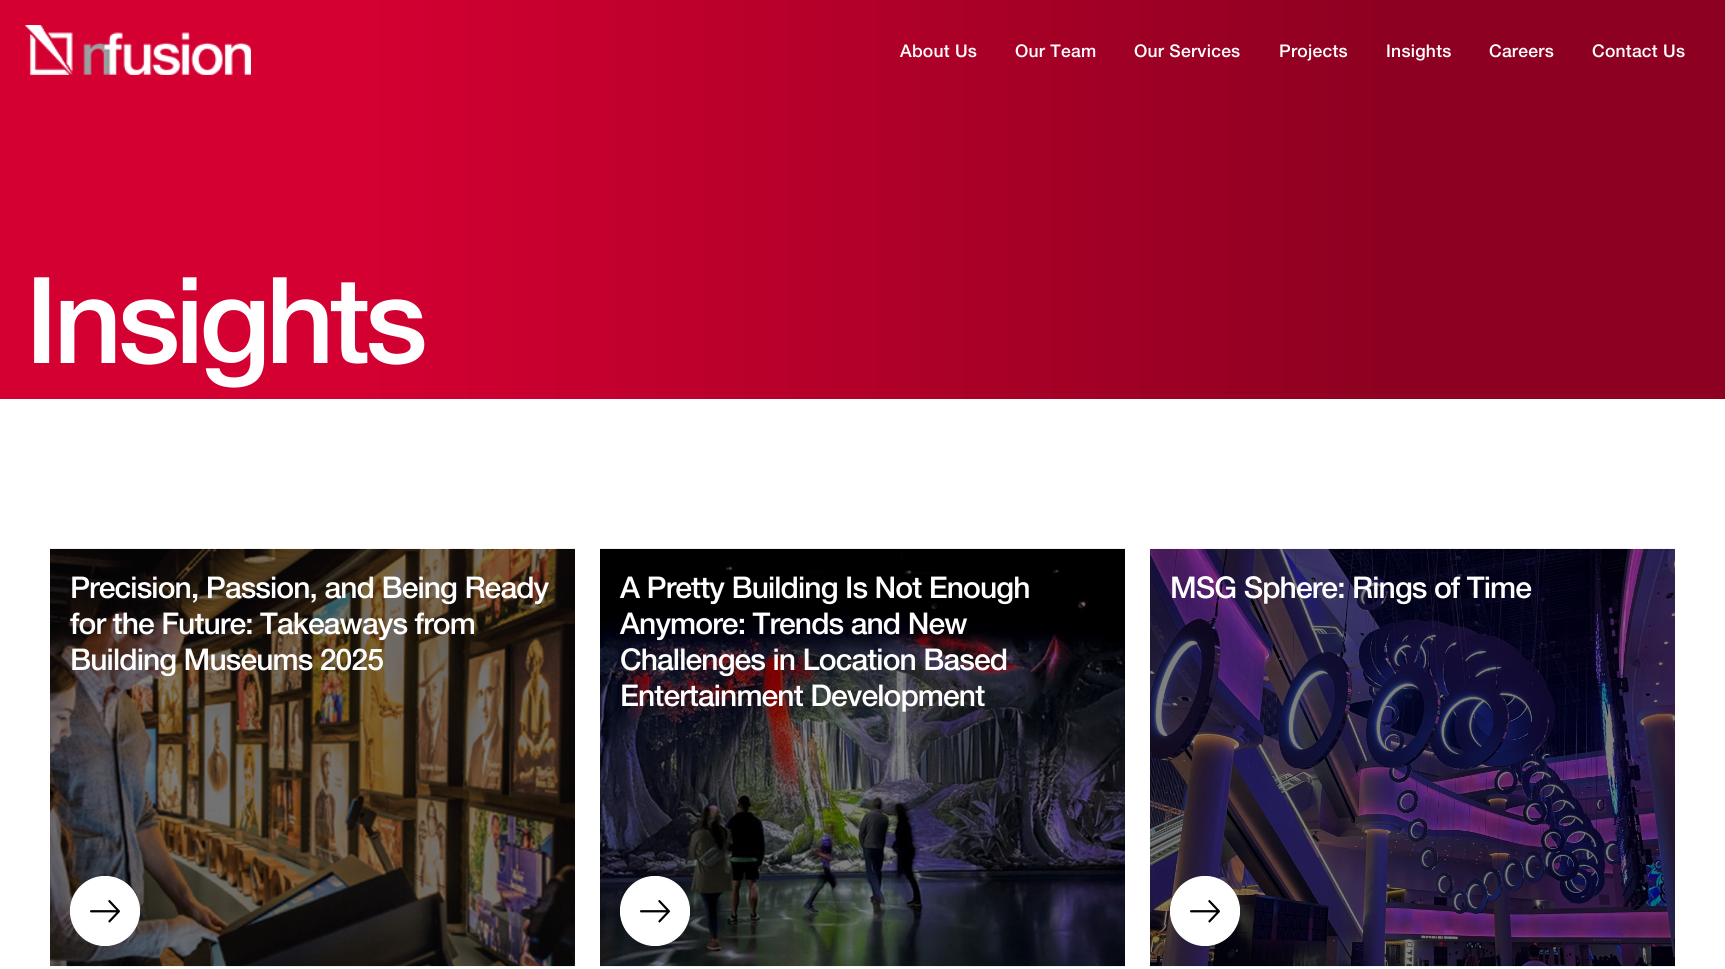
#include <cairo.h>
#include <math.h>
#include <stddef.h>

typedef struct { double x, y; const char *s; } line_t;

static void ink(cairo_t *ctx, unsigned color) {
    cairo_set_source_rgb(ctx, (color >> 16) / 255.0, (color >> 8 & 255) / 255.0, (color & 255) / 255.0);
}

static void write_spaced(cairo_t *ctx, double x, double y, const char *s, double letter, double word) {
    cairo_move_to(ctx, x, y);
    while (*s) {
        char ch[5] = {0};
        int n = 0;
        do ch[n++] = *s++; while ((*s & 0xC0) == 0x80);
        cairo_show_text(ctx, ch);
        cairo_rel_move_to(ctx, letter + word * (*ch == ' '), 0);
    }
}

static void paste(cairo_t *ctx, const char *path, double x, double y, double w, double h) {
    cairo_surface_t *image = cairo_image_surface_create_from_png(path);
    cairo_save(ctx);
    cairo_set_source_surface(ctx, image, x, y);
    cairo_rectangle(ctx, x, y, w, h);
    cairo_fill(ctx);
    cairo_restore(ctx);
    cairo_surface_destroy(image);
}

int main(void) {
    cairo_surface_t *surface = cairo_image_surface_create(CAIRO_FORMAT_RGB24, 1725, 969);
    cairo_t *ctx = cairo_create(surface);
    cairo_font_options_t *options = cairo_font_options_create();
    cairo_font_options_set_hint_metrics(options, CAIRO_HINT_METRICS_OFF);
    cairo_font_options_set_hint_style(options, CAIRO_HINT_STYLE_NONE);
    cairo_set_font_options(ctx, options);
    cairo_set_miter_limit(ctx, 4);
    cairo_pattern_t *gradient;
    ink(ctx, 0xFFFFFF);
    cairo_paint(ctx);
    gradient = cairo_pattern_create_linear(0, 199, 1725, 199);
    cairo_pattern_add_color_stop_rgba(gradient, 0.2, 0.835, 0, 0.196, 1);
    cairo_pattern_add_color_stop_rgba(gradient, 0.8, 0.557, 0, 0.129, 1);
    cairo_set_source(ctx, gradient);
    cairo_pattern_destroy(gradient);
    cairo_rectangle(ctx, 0, 0, 1725, 399);
    cairo_fill(ctx);
    paste(ctx, "media/1.png", 25, 25, 226, 50);
    cairo_select_font_face(ctx, "Helvetica Neue Medium", CAIRO_FONT_SLANT_NORMAL, CAIRO_FONT_WEIGHT_NORMAL);
    cairo_set_font_size(ctx, 17.5);
    ink(ctx, 0xFFFFFF);
    {
        static const line_t items[] = {
            {900, 57, "About Us"},
            {1015, 57, "Our Team"},
            {1134, 57, "Our Services"},
            {1279, 57, "Projects"},
            {1386, 57, "Insights"},
            {1489, 57, "Careers"},
            {1592, 57, "Contact Us"},
        };
        for (size_t i = 0; i < sizeof items / sizeof *items; i++) {
            write_spaced(ctx, items[i].x, items[i].y, items[i].s, 0.25, 0);
        }
    }
    cairo_set_font_size(ctx, 120);
    write_spaced(ctx, 25, 363, "Insights", -4.75, 0);
    paste(ctx, "media/2.png", 50, 548, 525, 419);
    cairo_set_font_size(ctx, 30);
    {
        static const line_t items[] = {
            {70, 598, "Precision, Passion, and Being Ready"},
            {70, 634, "for the Future: Takeaways from"},
            {70, 670, "Building Museums 2025"},
        };
        for (size_t i = 0; i < sizeof items / sizeof *items; i++) {
            write_spaced(ctx, items[i].x, items[i].y, items[i].s, -0.9, 0);
        }
    }
    paste(ctx, "media/3.png", 70, 876, 70, 70);
    paste(ctx, "media/4.png", 600, 548, 525, 419);
    {
        static const line_t items[] = {
            {620, 598, "A Pretty Building Is Not Enough"},
            {620, 634, "Anymore: Trends and New"},
            {620, 670, "Challenges in Location Based"},
            {620, 706, "Entertainment Development"},
        };
        for (size_t i = 0; i < sizeof items / sizeof *items; i++) {
            write_spaced(ctx, items[i].x, items[i].y, items[i].s, -0.9, 0);
        }
    }
    paste(ctx, "media/5.png", 620, 876, 70, 70);
    paste(ctx, "media/6.png", 1150, 548, 525, 419);
    write_spaced(ctx, 1170, 598, "MSG Sphere: Rings of Time", -0.9, 0);
    paste(ctx, "media/7.png", 1170, 876, 70, 70);
    cairo_surface_write_to_png(surface, "image.png");
    cairo_font_options_destroy(options);
    cairo_destroy(ctx);
    cairo_surface_destroy(surface);
    return 0;
}
